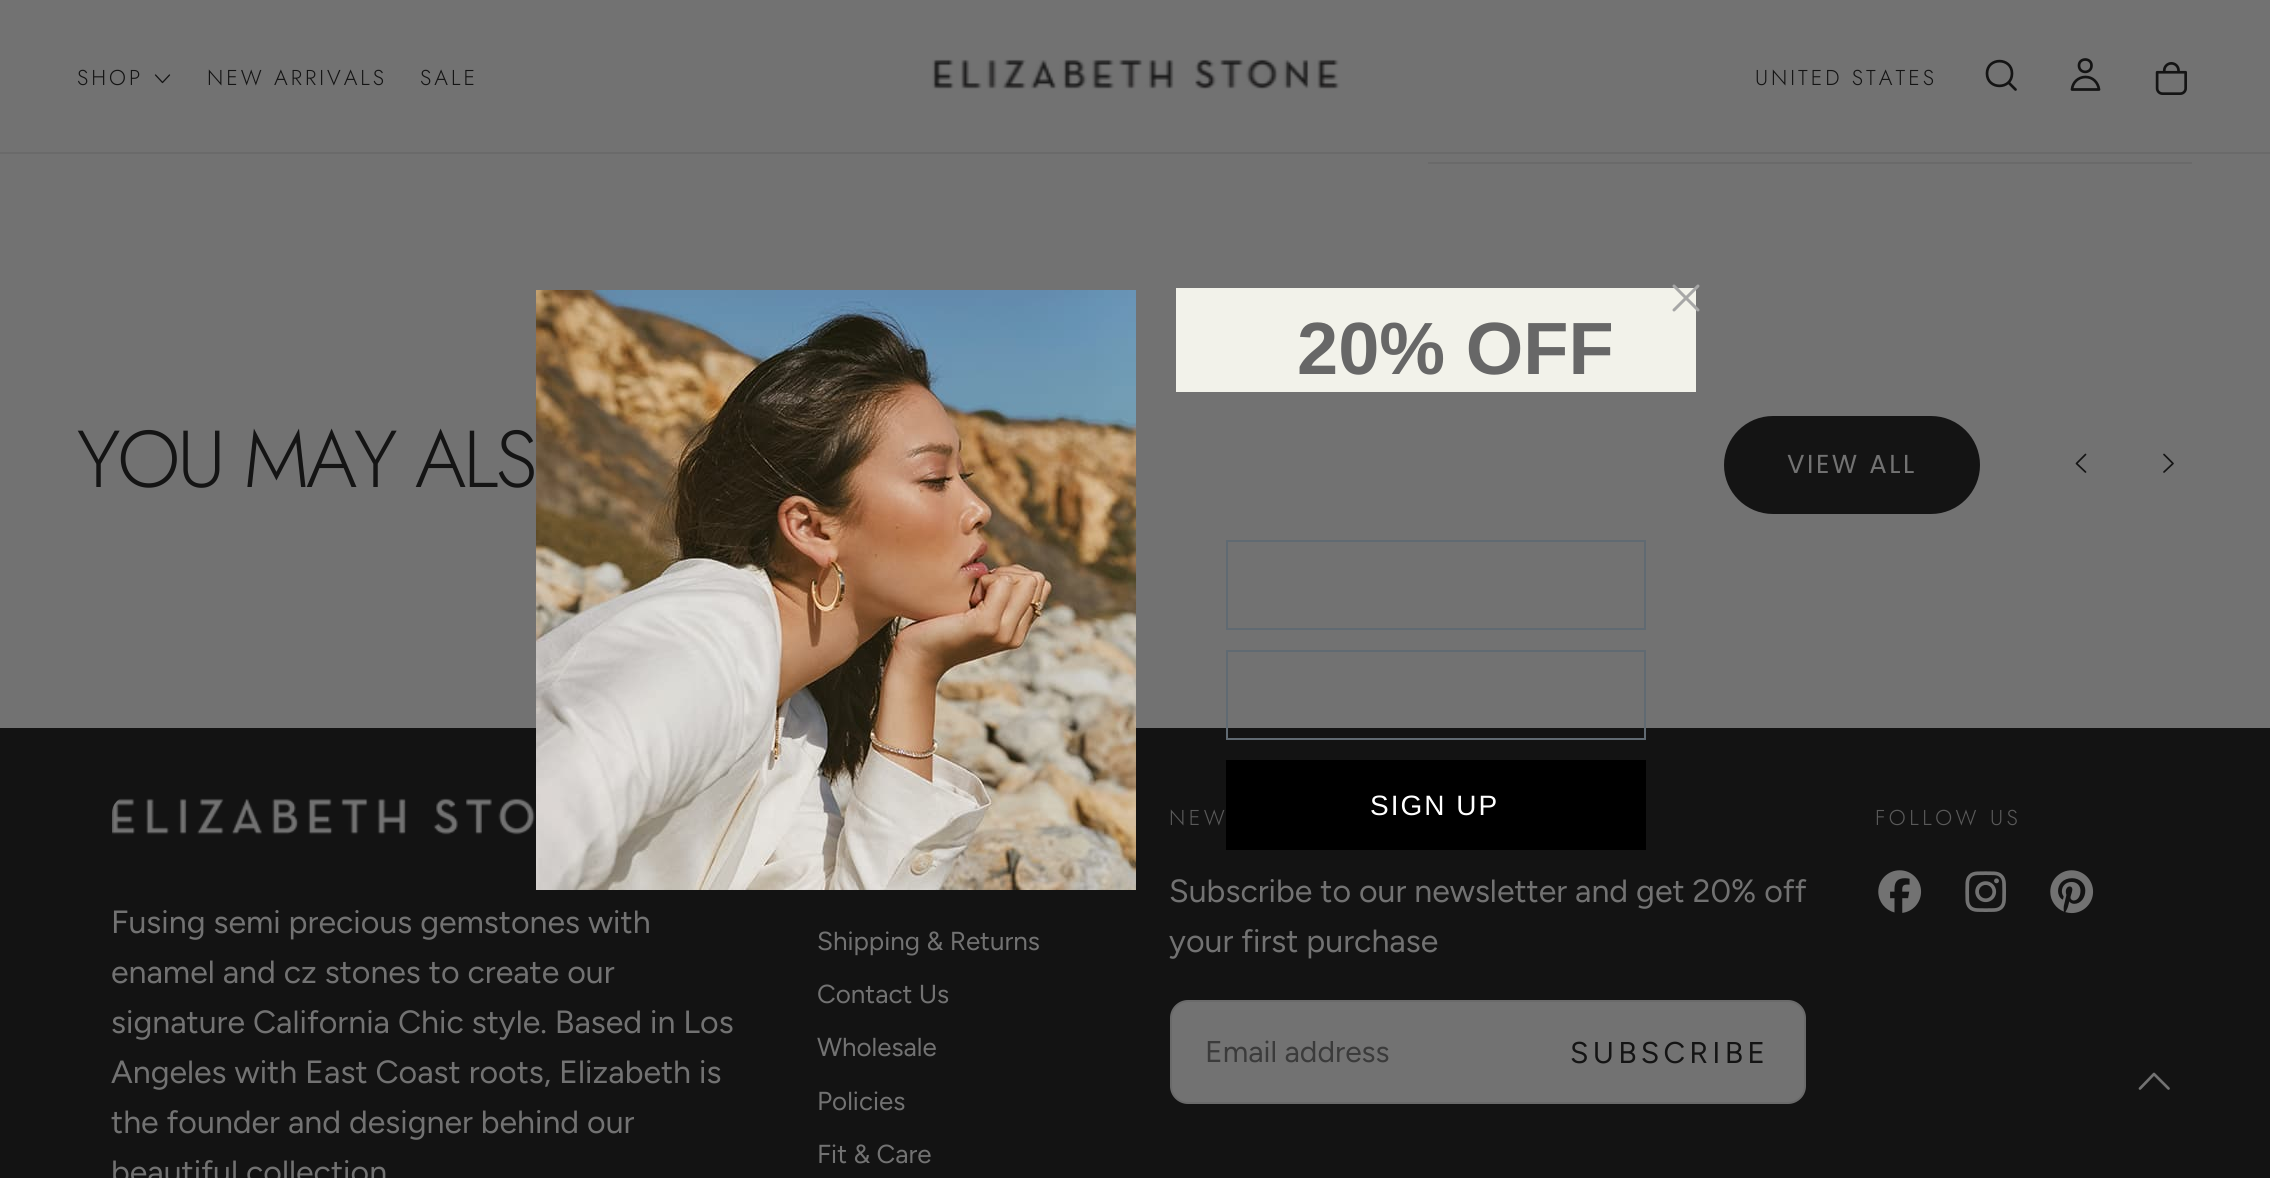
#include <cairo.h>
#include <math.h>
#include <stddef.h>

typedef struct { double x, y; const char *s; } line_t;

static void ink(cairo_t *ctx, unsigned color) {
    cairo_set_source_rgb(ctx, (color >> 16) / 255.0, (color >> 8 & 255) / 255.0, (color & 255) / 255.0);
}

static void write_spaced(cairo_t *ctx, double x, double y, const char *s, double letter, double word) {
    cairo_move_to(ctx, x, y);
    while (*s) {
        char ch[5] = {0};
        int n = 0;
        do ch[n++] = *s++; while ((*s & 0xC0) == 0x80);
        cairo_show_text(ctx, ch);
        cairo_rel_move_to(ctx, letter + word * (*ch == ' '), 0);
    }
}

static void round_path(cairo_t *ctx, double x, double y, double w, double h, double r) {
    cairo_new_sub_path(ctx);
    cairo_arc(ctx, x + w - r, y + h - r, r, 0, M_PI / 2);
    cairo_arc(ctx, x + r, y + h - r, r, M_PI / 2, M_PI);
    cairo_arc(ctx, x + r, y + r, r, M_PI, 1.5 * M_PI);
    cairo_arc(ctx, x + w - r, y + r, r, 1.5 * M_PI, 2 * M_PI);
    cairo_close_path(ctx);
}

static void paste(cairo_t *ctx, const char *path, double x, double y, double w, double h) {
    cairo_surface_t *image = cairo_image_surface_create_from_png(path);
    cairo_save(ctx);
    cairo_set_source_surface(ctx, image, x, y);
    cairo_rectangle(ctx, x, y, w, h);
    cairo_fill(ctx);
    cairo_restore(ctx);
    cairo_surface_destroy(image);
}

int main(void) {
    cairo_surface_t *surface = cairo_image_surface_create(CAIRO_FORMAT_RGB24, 2270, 1178);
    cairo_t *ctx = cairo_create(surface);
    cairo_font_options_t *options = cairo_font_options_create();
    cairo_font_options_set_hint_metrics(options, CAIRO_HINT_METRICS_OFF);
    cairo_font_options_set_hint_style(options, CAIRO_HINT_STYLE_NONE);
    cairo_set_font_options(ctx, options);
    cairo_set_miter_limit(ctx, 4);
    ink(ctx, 0x727272);
    cairo_paint(ctx);
    ink(ctx, 0x6A6A6A);
    cairo_rectangle(ctx, 0, 152, 2270, 2);
    cairo_fill(ctx);
    cairo_select_font_face(ctx, "Jost Light", CAIRO_FONT_SLANT_NORMAL, CAIRO_FONT_WEIGHT_NORMAL);
    cairo_set_font_size(ctx, 21.5);
    ink(ctx, 0x141414);
    write_spaced(ctx, 77, 85, "SHOP", 3, 0);
    cairo_new_path(ctx);
    cairo_move_to(ctx, 169.5, 75);
    cairo_line_to(ctx, 162.5, 82.5);
    cairo_line_to(ctx, 155.5, 75);
    cairo_set_line_width(ctx, 1.3);
    cairo_set_line_cap(ctx, CAIRO_LINE_CAP_ROUND);
    cairo_set_line_join(ctx, CAIRO_LINE_JOIN_ROUND);
    cairo_stroke(ctx);
    write_spaced(ctx, 207, 85, "NEW ARRIVALS", 3, 0);
    write_spaced(ctx, 420, 85, "SALE", 3, 0);
    paste(ctx, "media/1.png", 932, 59, 408, 31);
    write_spaced(ctx, 1755, 85, "UNITED STATES", 3, 0);
    cairo_new_path(ctx);
    cairo_move_to(ctx, 2015.5, 89.5);
    cairo_line_to(ctx, 2008.5, 82.5);
    cairo_move_to(ctx, 2012, 73.5);
    cairo_curve_to(ctx, 2012, 90, 1987, 90, 1987, 73.5);
    cairo_curve_to(ctx, 1987, 57, 2012, 57, 2012, 73.5);
    cairo_close_path(ctx);
    cairo_set_line_width(ctx, 2.7);
    cairo_set_line_join(ctx, CAIRO_LINE_JOIN_MITER);
    cairo_stroke(ctx);
    cairo_new_path(ctx);
    cairo_move_to(ctx, 2091.5, 65.5);
    cairo_curve_to(ctx, 2091.5, 74, 2079, 74, 2079, 65.5);
    cairo_curve_to(ctx, 2079, 57.5, 2091.5, 57.5, 2091.5, 65.5);
    cairo_close_path(ctx);
    cairo_move_to(ctx, 2085.5, 77);
    cairo_curve_to(ctx, 2078, 77, 2072.5, 82.5, 2072, 89.5);
    cairo_line_to(ctx, 2099, 89.5);
    cairo_curve_to(ctx, 2098, 82.5, 2093, 77, 2085.5, 77);
    cairo_close_path(ctx);
    cairo_set_line_cap(ctx, CAIRO_LINE_CAP_BUTT);
    cairo_set_line_join(ctx, CAIRO_LINE_JOIN_ROUND);
    cairo_stroke(ctx);
    paste(ctx, "media/2.png", 2155, 62, 32, 33);
    ink(ctx, 0xF2F2EA);
    cairo_rectangle(ctx, 1176, 288, 520, 104);
    cairo_fill(ctx);
    cairo_new_path(ctx);
    cairo_move_to(ctx, 1674, 286);
    cairo_line_to(ctx, 1698, 310);
    cairo_move_to(ctx, 1674, 310);
    cairo_line_to(ctx, 1698, 286);
    cairo_close_path(ctx);
    ink(ctx, 0xA7A7A7);
    cairo_set_line_width(ctx, 3);
    cairo_set_line_cap(ctx, CAIRO_LINE_CAP_ROUND);
    cairo_stroke(ctx);
    ink(ctx, 0x131313);
    cairo_rectangle(ctx, 0, 728, 2270, 450);
    cairo_fill(ctx);
    paste(ctx, "media/3.png", 536, 290, 600, 600);
    cairo_select_font_face(ctx, "Liberation Sans", CAIRO_FONT_SLANT_NORMAL, CAIRO_FONT_WEIGHT_BOLD);
    cairo_set_font_size(ctx, 74);
    ink(ctx, 0x676767);
    cairo_move_to(ctx, 1297, 374);
    cairo_show_text(ctx, "20% OFF");
    cairo_rectangle(ctx, 1227, 541, 418, 88);
    ink(ctx, 0x606A72);
    cairo_set_line_width(ctx, 2);
    cairo_set_line_cap(ctx, CAIRO_LINE_CAP_BUTT);
    cairo_set_line_join(ctx, CAIRO_LINE_JOIN_MITER);
    cairo_stroke(ctx);
    cairo_rectangle(ctx, 1227, 651, 418, 88);
    cairo_stroke(ctx);
    ink(ctx, 0x000000);
    cairo_rectangle(ctx, 1226, 760, 420, 90);
    cairo_fill(ctx);
    cairo_select_font_face(ctx, "Liberation Sans", CAIRO_FONT_SLANT_NORMAL, CAIRO_FONT_WEIGHT_NORMAL);
    cairo_set_font_size(ctx, 28);
    ink(ctx, 0xFFFFFF);
    write_spaced(ctx, 1370, 815, "SIGN UP", 2, 0);
    ink(ctx, 0x6A6A6A);
    cairo_rectangle(ctx, 1428, 162, 764, 2);
    cairo_fill(ctx);
    cairo_select_font_face(ctx, "Jost Light", CAIRO_FONT_SLANT_NORMAL, CAIRO_FONT_WEIGHT_NORMAL);
    cairo_set_font_size(ctx, 80.5);
    ink(ctx, 0x141414);
    write_spaced(ctx, 77, 487, "YOU MAY ALS", -3.25, 0);
    round_path(ctx, 1725, 417, 254, 96, 48);
    cairo_fill_preserve(ctx);
    cairo_stroke(ctx);
    cairo_select_font_face(ctx, "Poppins", CAIRO_FONT_SLANT_NORMAL, CAIRO_FONT_WEIGHT_NORMAL);
    cairo_set_font_size(ctx, 26);
    ink(ctx, 0x727272);
    write_spaced(ctx, 1787, 473, "VIEW ALL", 2.5, 0);
    cairo_new_path(ctx);
    cairo_move_to(ctx, 2085.5, 454.5);
    cairo_line_to(ctx, 2076.5, 463.5);
    cairo_line_to(ctx, 2085.5, 472);
    ink(ctx, 0x141414);
    cairo_set_line_width(ctx, 1.7);
    cairo_set_line_cap(ctx, CAIRO_LINE_CAP_ROUND);
    cairo_set_line_join(ctx, CAIRO_LINE_JOIN_ROUND);
    cairo_stroke(ctx);
    cairo_new_path(ctx);
    cairo_move_to(ctx, 2164, 454.5);
    cairo_line_to(ctx, 2173, 463.5);
    cairo_line_to(ctx, 2164, 472);
    cairo_stroke(ctx);
    cairo_select_font_face(ctx, "Jost Light", CAIRO_FONT_SLANT_NORMAL, CAIRO_FONT_WEIGHT_NORMAL);
    cairo_set_font_size(ctx, 21.5);
    ink(ctx, 0x5A5A5A);
    write_spaced(ctx, 1169, 825, "NEW", 3.5, 0);
    cairo_select_font_face(ctx, "Figtree", CAIRO_FONT_SLANT_NORMAL, CAIRO_FONT_WEIGHT_NORMAL);
    cairo_set_font_size(ctx, 32.1);
    ink(ctx, 0x727272);
    cairo_move_to(ctx, 1169, 902);
    cairo_show_text(ctx, "Subscribe to our newsletter and get 20% off");
    cairo_move_to(ctx, 1169, 952);
    cairo_show_text(ctx, "your first purchase");
    round_path(ctx, 1171, 1001, 634, 102, 17);
    cairo_fill_preserve(ctx);
    ink(ctx, 0x6A6A6A);
    cairo_set_line_width(ctx, 2);
    cairo_set_line_cap(ctx, CAIRO_LINE_CAP_BUTT);
    cairo_set_line_join(ctx, CAIRO_LINE_JOIN_MITER);
    cairo_stroke(ctx);
    cairo_set_font_size(ctx, 30);
    ink(ctx, 0x3B3B3B);
    cairo_move_to(ctx, 1205, 1062);
    cairo_show_text(ctx, "Email address");
    ink(ctx, 0x141414);
    write_spaced(ctx, 1570, 1063, "SUBSCRIBE", 4.25, 0);
    cairo_select_font_face(ctx, "Jost Light", CAIRO_FONT_SLANT_NORMAL, CAIRO_FONT_WEIGHT_NORMAL);
    cairo_set_font_size(ctx, 21.5);
    ink(ctx, 0x5A5A5A);
    write_spaced(ctx, 1875, 825, "FOLLOW US", 3.5, 0);
    paste(ctx, "media/4.png", 1878, 870, 44, 43);
    paste(ctx, "media/5.png", 1965, 871, 41, 41);
    paste(ctx, "media/6.png", 2050, 870, 44, 44);
    paste(ctx, "media/7.png", 112, 798, 423, 37);
    cairo_select_font_face(ctx, "Figtree", CAIRO_FONT_SLANT_NORMAL, CAIRO_FONT_WEIGHT_NORMAL);
    cairo_set_font_size(ctx, 32.1);
    ink(ctx, 0x727272);
    {
        static const line_t items[] = {
            {111, 933, "Fusing semi precious gemstones with"},
            {111, 983, "enamel and cz stones to create our"},
            {111, 1033, "signature California Chic style. Based in Los"},
            {111, 1083, "Angeles with East Coast roots, Elizabeth is"},
            {111, 1133, "the founder and designer behind our"},
            {111, 1183, "beautiful collection"},
        };
        for (size_t i = 0; i < sizeof items / sizeof *items; i++) {
            cairo_move_to(ctx, items[i].x, items[i].y);
            cairo_show_text(ctx, items[i].s);
        }
    }
    cairo_set_font_size(ctx, 26);
    {
        static const line_t items[] = {
            {817, 950, "Shipping & Returns"},
            {817, 1003, "Contact Us"},
            {817, 1056, "Wholesale"},
            {817, 1110, "Policies"},
            {817, 1163, "Fit & Care"},
        };
        for (size_t i = 0; i < sizeof items / sizeof *items; i++) {
            cairo_move_to(ctx, items[i].x, items[i].y);
            cairo_show_text(ctx, items[i].s);
        }
    }
    cairo_new_path(ctx);
    cairo_move_to(ctx, 2140, 1088.5);
    cairo_line_to(ctx, 2154, 1074);
    cairo_line_to(ctx, 2168.5, 1088.5);
    cairo_set_line_width(ctx, 2.7);
    cairo_set_line_cap(ctx, CAIRO_LINE_CAP_ROUND);
    cairo_set_line_join(ctx, CAIRO_LINE_JOIN_ROUND);
    cairo_stroke(ctx);
    cairo_surface_write_to_png(surface, "image.png");
    cairo_font_options_destroy(options);
    cairo_destroy(ctx);
    cairo_surface_destroy(surface);
    return 0;
}
